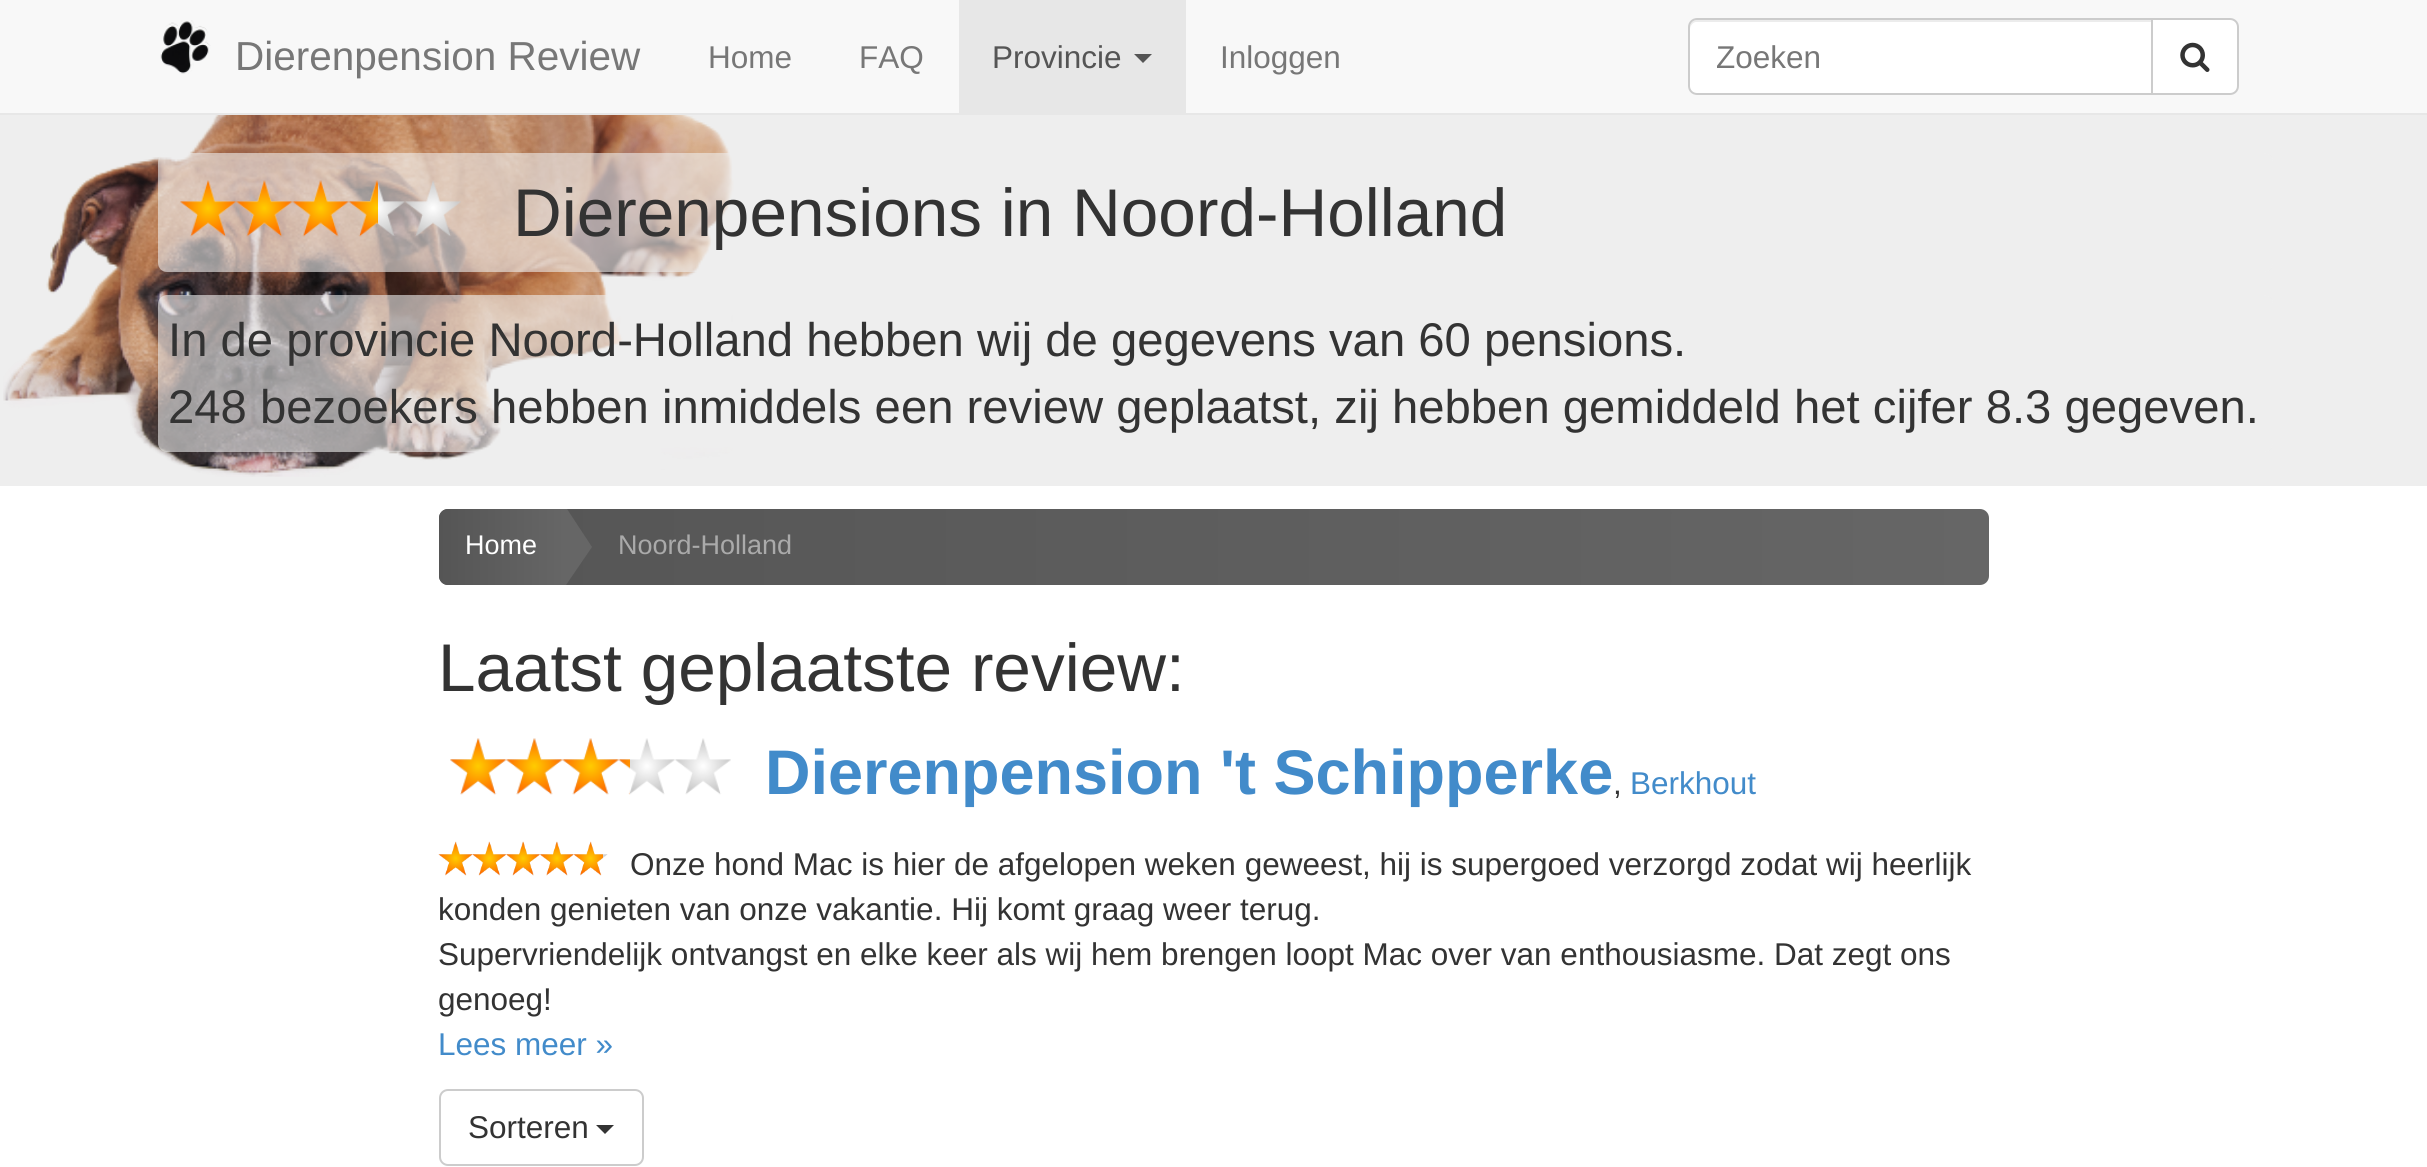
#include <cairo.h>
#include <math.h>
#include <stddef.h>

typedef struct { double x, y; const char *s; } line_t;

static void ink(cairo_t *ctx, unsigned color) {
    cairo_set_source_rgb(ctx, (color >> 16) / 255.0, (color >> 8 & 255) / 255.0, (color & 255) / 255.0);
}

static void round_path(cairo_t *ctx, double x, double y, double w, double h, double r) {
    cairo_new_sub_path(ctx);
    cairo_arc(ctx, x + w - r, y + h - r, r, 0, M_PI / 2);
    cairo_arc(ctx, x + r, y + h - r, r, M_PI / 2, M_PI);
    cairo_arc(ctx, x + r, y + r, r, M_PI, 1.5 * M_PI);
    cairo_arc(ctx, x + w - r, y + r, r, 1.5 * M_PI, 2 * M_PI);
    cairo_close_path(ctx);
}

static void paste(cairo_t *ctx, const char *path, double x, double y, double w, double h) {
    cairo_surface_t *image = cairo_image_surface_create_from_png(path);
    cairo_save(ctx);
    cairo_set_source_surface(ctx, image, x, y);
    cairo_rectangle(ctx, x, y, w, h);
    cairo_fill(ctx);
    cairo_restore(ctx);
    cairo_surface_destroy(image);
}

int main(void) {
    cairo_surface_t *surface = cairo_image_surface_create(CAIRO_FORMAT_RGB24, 2427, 1167);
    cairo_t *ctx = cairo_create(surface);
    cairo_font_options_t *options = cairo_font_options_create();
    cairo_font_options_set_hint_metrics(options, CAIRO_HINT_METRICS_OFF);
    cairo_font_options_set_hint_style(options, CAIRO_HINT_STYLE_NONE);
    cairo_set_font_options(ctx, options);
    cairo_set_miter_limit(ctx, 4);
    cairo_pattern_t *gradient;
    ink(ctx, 0xFFFFFF);
    cairo_paint(ctx);
    ink(ctx, 0xF8F8F8);
    cairo_rectangle(ctx, 0, 0, 2427, 113);
    cairo_fill(ctx);
    ink(ctx, 0xE7E7E7);
    cairo_rectangle(ctx, 0, 113, 2427, 2);
    cairo_fill(ctx);
    paste(ctx, "media/1.png", 160, 20, 51, 54);
    cairo_select_font_face(ctx, "Liberation Sans", CAIRO_FONT_SLANT_NORMAL, CAIRO_FONT_WEIGHT_NORMAL);
    cairo_set_font_size(ctx, 40.5);
    ink(ctx, 0x777777);
    cairo_move_to(ctx, 235, 70);
    cairo_show_text(ctx, "Dierenpension Review");
    cairo_set_font_size(ctx, 31.5);
    cairo_move_to(ctx, 708, 68);
    cairo_show_text(ctx, "Home");
    cairo_move_to(ctx, 859, 68);
    cairo_show_text(ctx, "FAQ");
    ink(ctx, 0xE7E7E7);
    cairo_rectangle(ctx, 959, 0, 227, 113);
    cairo_fill(ctx);
    ink(ctx, 0x555555);
    cairo_move_to(ctx, 992, 68);
    cairo_show_text(ctx, "Provincie");
    cairo_new_path(ctx);
    cairo_move_to(ctx, 1134, 54);
    cairo_line_to(ctx, 1152, 54);
    cairo_line_to(ctx, 1143, 63);
    cairo_close_path(ctx);
    cairo_fill(ctx);
    ink(ctx, 0x777777);
    cairo_move_to(ctx, 1220, 68);
    cairo_show_text(ctx, "Inloggen");
    ink(ctx, 0xFFFFFF);
    cairo_new_path(ctx);
    cairo_move_to(ctx, 1697, 18);
    cairo_line_to(ctx, 2153, 18);
    cairo_line_to(ctx, 2153, 95);
    cairo_line_to(ctx, 1697, 95);
    cairo_curve_to(ctx, 1692, 95, 1688, 91, 1688, 86);
    cairo_line_to(ctx, 1688, 27);
    cairo_curve_to(ctx, 1688, 22, 1692, 18, 1697, 18);
    cairo_close_path(ctx);
    cairo_fill(ctx);
    ink(ctx, 0xECECEC);
    cairo_new_path(ctx);
    cairo_move_to(ctx, 1696, 22);
    cairo_line_to(ctx, 2151, 22);
    cairo_line_to(ctx, 2151, 20);
    cairo_line_to(ctx, 1697, 20);
    cairo_curve_to(ctx, 1693, 20, 1690, 23, 1690, 27);
    cairo_line_to(ctx, 1690, 29);
    cairo_curve_to(ctx, 1690, 26, 1693, 22, 1696, 22);
    cairo_close_path(ctx);
    cairo_fill(ctx);
    cairo_new_path(ctx);
    cairo_move_to(ctx, 1697, 19);
    cairo_line_to(ctx, 2152, 19);
    cairo_line_to(ctx, 2152, 94);
    cairo_line_to(ctx, 1697, 94);
    cairo_curve_to(ctx, 1692.5, 94, 1689, 90.5, 1689, 86);
    cairo_line_to(ctx, 1689, 27);
    cairo_curve_to(ctx, 1689, 22.5, 1692.5, 19, 1697, 19);
    cairo_close_path(ctx);
    ink(ctx, 0xCCCCCC);
    cairo_stroke(ctx);
    cairo_save(ctx);
    cairo_rectangle(ctx, 1717, 38, 407, 36);
    cairo_clip(ctx);
    ink(ctx, 0x777777);
    cairo_move_to(ctx, 1716, 68);
    cairo_show_text(ctx, "Zoeken");
    cairo_restore(ctx);
    ink(ctx, 0xFFFFFF);
    cairo_new_path(ctx);
    cairo_move_to(ctx, 2152, 19);
    cairo_line_to(ctx, 2230, 19);
    cairo_curve_to(ctx, 2234.5, 19, 2238, 22.5, 2238, 27);
    cairo_line_to(ctx, 2238, 86);
    cairo_curve_to(ctx, 2238, 90.5, 2234.5, 94, 2230, 94);
    cairo_line_to(ctx, 2152, 94);
    cairo_close_path(ctx);
    cairo_fill_preserve(ctx);
    ink(ctx, 0xCCCCCC);
    cairo_stroke(ctx);
    paste(ctx, "media/2.png", 2180, 42, 30, 30);
    ink(ctx, 0xEEEEEE);
    cairo_rectangle(ctx, 0, 115, 2427, 371);
    cairo_fill(ctx);
    paste(ctx, "media/3.png", 3, 115, 731, 362);
    cairo_set_source_rgba(ctx, 0.933, 0.933, 0.933, 0.6);
    round_path(ctx, 158, 153, 2115, 119, 9);
    cairo_fill(ctx);
    paste(ctx, "media/4.png", 180, 180, 281, 56);
    paste(ctx, "media/5.png", 180, 180, 198, 57);
    cairo_set_font_size(ctx, 67.5);
    ink(ctx, 0x333333);
    cairo_move_to(ctx, 513, 236);
    cairo_show_text(ctx, "Dierenpensions in Noord-Holland");
    cairo_set_source_rgba(ctx, 0.933, 0.933, 0.933, 0.6);
    round_path(ctx, 158, 295, 2115, 157, 9);
    cairo_fill(ctx);
    cairo_set_font_size(ctx, 47.25);
    ink(ctx, 0x333333);
    cairo_move_to(ctx, 168, 356);
    cairo_show_text(ctx, "In de provincie Noord-Holland hebben wij de gegevens van 60 pensions.");
    cairo_move_to(ctx, 168, 423);
    cairo_show_text(ctx, "248 bezoekers hebben inmiddels een review geplaatst, zij hebben gemiddeld het cijfer 8.3 gegeven.");
    gradient = cairo_pattern_create_linear(439, 547, 1989, 547);
    cairo_pattern_add_color_stop_rgba(gradient, 0, 0.333, 0.333, 0.333, 1);
    cairo_pattern_add_color_stop_rgba(gradient, 1, 0.4, 0.4, 0.4, 1);
    cairo_set_source(ctx, gradient);
    cairo_pattern_destroy(gradient);
    round_path(ctx, 439, 509, 1550, 76, 9);
    cairo_fill(ctx);
    gradient = cairo_pattern_create_linear(439, 547, 565, 547);
    cairo_pattern_add_color_stop_rgba(gradient, 0, 0.333, 0.333, 0.333, 1);
    cairo_pattern_add_color_stop_rgba(gradient, 1, 0.4, 0.4, 0.4, 1);
    cairo_set_source(ctx, gradient);
    cairo_pattern_destroy(gradient);
    cairo_new_path(ctx);
    cairo_move_to(ctx, 448, 509);
    cairo_line_to(ctx, 565, 509);
    cairo_line_to(ctx, 565, 585);
    cairo_line_to(ctx, 448, 585);
    cairo_curve_to(ctx, 443, 585, 439, 581, 439, 576);
    cairo_line_to(ctx, 439, 518);
    cairo_curve_to(ctx, 439, 513, 443, 509, 448, 509);
    cairo_close_path(ctx);
    cairo_fill(ctx);
    cairo_set_font_size(ctx, 27);
    ink(ctx, 0xFFFFFF);
    cairo_move_to(ctx, 465, 554);
    cairo_show_text(ctx, "Home");
    ink(ctx, 0x666666);
    cairo_new_path(ctx);
    cairo_move_to(ctx, 567, 509);
    cairo_line_to(ctx, 592, 547);
    cairo_line_to(ctx, 566, 585);
    cairo_line_to(ctx, 565, 585);
    cairo_line_to(ctx, 565, 509);
    cairo_close_path(ctx);
    cairo_fill(ctx);
    ink(ctx, 0xAAAAAA);
    cairo_move_to(ctx, 618, 554);
    cairo_show_text(ctx, "Noord-Holland");
    cairo_set_font_size(ctx, 67.5);
    ink(ctx, 0x333333);
    cairo_move_to(ctx, 438, 691);
    cairo_show_text(ctx, "Laatst geplaatste review:");
    paste(ctx, "media/6.png", 450, 738, 281, 57);
    paste(ctx, "media/7.png", 450, 738, 180, 57);
    cairo_select_font_face(ctx, "Liberation Sans", CAIRO_FONT_SLANT_NORMAL, CAIRO_FONT_WEIGHT_BOLD);
    cairo_set_font_size(ctx, 63);
    ink(ctx, 0x428BCA);
    cairo_move_to(ctx, 765, 794);
    cairo_show_text(ctx, "Dierenpension 't Schipperke");
    cairo_select_font_face(ctx, "Liberation Sans", CAIRO_FONT_SLANT_NORMAL, CAIRO_FONT_WEIGHT_NORMAL);
    cairo_set_font_size(ctx, 31.5);
    ink(ctx, 0x333333);
    cairo_move_to(ctx, 1613, 794);
    cairo_show_text(ctx, ",");
    ink(ctx, 0x428BCA);
    cairo_move_to(ctx, 1630, 794);
    cairo_show_text(ctx, "Berkhout");
    paste(ctx, "media/9.png", 438, 842, 170, 34);
    paste(ctx, "media/8.png", 438, 841, 165, 35);
    ink(ctx, 0x333333);
    {
        static const line_t items[] = {
            {630, 875, "Onze hond Mac is hier de afgelopen weken geweest, hij is supergoed verzorgd zodat wij heerlijk"},
            {438, 920, "konden genieten van onze vakantie. Hij komt graag weer terug."},
            {438, 965, "Supervriendelijk ontvangst en elke keer als wij hem brengen loopt Mac over van enthousiasme. Dat zegt ons"},
            {438, 1010, "genoeg!"},
        };
        for (size_t i = 0; i < sizeof items / sizeof *items; i++) {
            cairo_move_to(ctx, items[i].x, items[i].y);
            cairo_show_text(ctx, items[i].s);
        }
    }
    ink(ctx, 0x428BCA);
    cairo_move_to(ctx, 438, 1055);
    cairo_show_text(ctx, "Lees meer »");
    round_path(ctx, 440, 1090, 203, 75, 8);
    ink(ctx, 0xCCCCCC);
    cairo_stroke(ctx);
    ink(ctx, 0x333333);
    cairo_move_to(ctx, 468, 1138);
    cairo_show_text(ctx, "Sorteren");
    cairo_new_path(ctx);
    cairo_move_to(ctx, 596, 1125);
    cairo_line_to(ctx, 614, 1125);
    cairo_line_to(ctx, 605, 1134);
    cairo_close_path(ctx);
    cairo_fill(ctx);
    cairo_surface_write_to_png(surface, "image.png");
    cairo_font_options_destroy(options);
    cairo_destroy(ctx);
    cairo_surface_destroy(surface);
    return 0;
}
